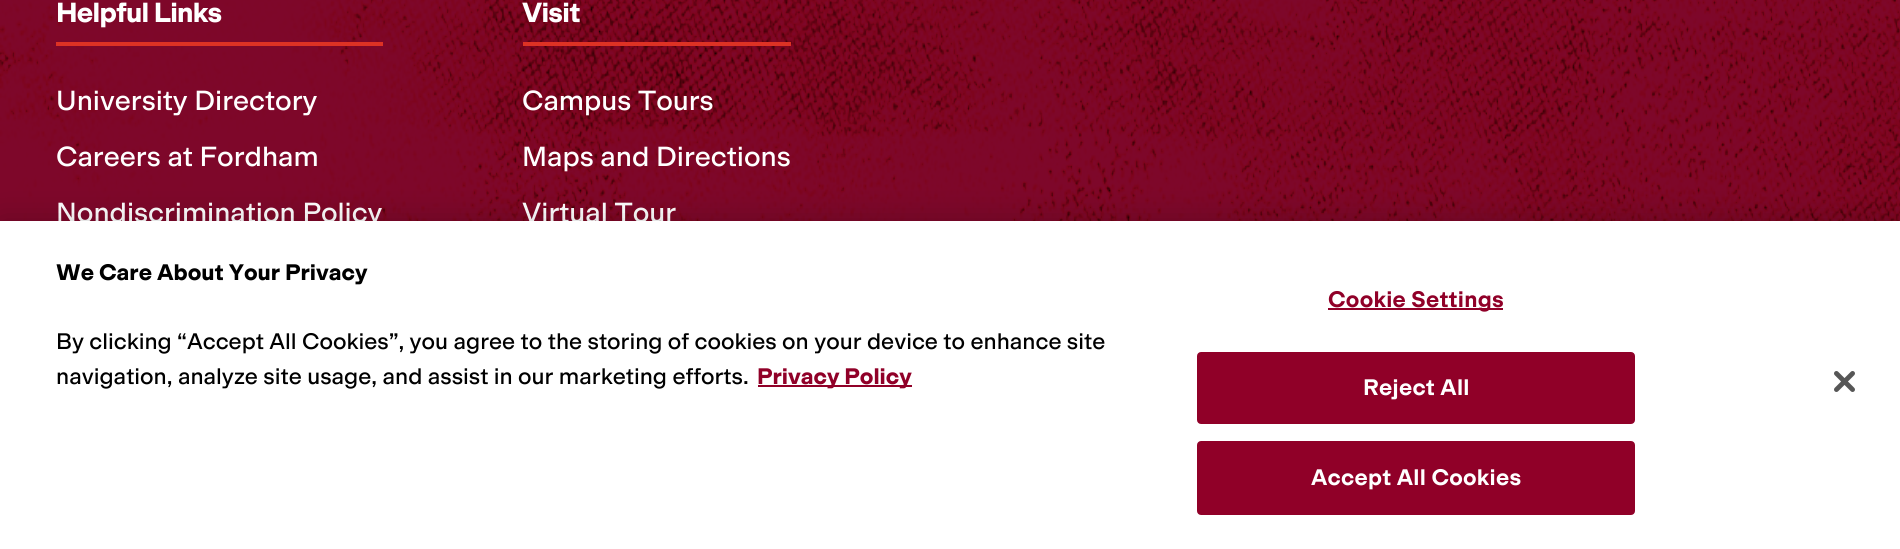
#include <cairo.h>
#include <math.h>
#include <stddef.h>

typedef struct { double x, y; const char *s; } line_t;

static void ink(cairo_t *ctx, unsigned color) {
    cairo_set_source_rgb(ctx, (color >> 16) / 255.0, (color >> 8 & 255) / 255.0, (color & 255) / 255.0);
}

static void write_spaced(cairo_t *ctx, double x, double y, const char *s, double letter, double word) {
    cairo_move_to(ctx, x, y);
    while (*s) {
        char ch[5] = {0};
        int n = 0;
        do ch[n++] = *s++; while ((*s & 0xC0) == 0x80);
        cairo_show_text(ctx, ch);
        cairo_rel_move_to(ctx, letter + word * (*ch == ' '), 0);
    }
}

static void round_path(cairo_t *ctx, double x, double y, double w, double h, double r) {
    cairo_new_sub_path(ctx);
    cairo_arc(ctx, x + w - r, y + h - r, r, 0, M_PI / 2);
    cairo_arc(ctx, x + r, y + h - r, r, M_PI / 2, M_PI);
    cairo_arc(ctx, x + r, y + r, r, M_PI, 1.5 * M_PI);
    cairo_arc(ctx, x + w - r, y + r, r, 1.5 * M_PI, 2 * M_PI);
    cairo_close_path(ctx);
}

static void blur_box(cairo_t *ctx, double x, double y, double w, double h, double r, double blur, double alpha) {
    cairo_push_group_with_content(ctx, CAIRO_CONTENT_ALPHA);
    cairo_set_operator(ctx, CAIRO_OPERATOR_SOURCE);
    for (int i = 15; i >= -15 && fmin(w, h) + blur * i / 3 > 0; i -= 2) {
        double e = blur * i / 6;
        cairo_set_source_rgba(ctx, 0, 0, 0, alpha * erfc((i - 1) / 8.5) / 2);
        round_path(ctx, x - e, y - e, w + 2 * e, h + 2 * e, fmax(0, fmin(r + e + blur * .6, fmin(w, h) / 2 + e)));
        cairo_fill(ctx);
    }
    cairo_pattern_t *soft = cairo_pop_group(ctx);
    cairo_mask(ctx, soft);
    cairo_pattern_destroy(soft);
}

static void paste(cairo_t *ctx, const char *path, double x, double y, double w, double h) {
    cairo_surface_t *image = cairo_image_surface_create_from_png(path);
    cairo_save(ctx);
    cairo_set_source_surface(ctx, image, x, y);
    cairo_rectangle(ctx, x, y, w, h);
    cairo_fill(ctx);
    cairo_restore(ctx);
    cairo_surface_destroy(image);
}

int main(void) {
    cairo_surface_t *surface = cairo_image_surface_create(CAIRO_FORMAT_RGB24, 1900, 549);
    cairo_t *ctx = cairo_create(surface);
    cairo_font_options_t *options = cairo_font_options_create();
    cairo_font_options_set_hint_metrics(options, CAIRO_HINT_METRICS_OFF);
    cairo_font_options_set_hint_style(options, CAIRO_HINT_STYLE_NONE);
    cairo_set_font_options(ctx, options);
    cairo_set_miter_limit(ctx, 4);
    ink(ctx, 0xFFFFFF);
    cairo_paint(ctx);
    paste(ctx, "media/1.png", 0, 0, 1900, 221);
    ink(ctx, 0xDD3224);
    cairo_rectangle(ctx, 56, 42, 327, 4);
    cairo_fill(ctx);
    cairo_select_font_face(ctx, "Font", CAIRO_FONT_SLANT_NORMAL, CAIRO_FONT_WEIGHT_BOLD);
    cairo_set_font_size(ctx, 28);
    ink(ctx, 0xFFFFFF);
    write_spaced(ctx, 56, 22, "Helpful Links", -0.75, 0);
    cairo_select_font_face(ctx, "Font", CAIRO_FONT_SLANT_NORMAL, CAIRO_FONT_WEIGHT_NORMAL);
    {
        static const line_t items[] = {
            {56, 110, "University Directory"},
            {56, 166, "Careers at Fordham"},
            {56, 222, "Nondiscrimination Policy"},
        };
        for (size_t i = 0; i < sizeof items / sizeof *items; i++) {
            cairo_move_to(ctx, items[i].x, items[i].y);
            cairo_show_text(ctx, items[i].s);
        }
    }
    ink(ctx, 0xDD3224);
    cairo_rectangle(ctx, 523, 42, 268, 4);
    cairo_fill(ctx);
    cairo_select_font_face(ctx, "Font", CAIRO_FONT_SLANT_NORMAL, CAIRO_FONT_WEIGHT_BOLD);
    ink(ctx, 0xFFFFFF);
    write_spaced(ctx, 522, 22, "Visit", -0.75, 0);
    cairo_select_font_face(ctx, "Font", CAIRO_FONT_SLANT_NORMAL, CAIRO_FONT_WEIGHT_NORMAL);
    {
        static const line_t items[] = {
            {522, 110, "Campus Tours"},
            {522, 166, "Maps and Directions"},
            {522, 222, "Virtual Tour"},
        };
        for (size_t i = 0; i < sizeof items / sizeof *items; i++) {
            cairo_move_to(ctx, items[i].x, items[i].y);
            cairo_show_text(ctx, items[i].s);
        }
    }
    ink(ctx, 0x000000);
    blur_box(ctx, 0, 221, 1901, 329, 0, 16, 0.2);
    ink(ctx, 0xFFFFFF);
    cairo_rectangle(ctx, 0, 221, 1900, 328);
    cairo_fill(ctx);
    cairo_select_font_face(ctx, "Font", CAIRO_FONT_SLANT_NORMAL, CAIRO_FONT_WEIGHT_BOLD);
    cairo_set_font_size(ctx, 22.75);
    ink(ctx, 0x000000);
    cairo_move_to(ctx, 56, 280);
    cairo_show_text(ctx, "We Care About Your Privacy");
    cairo_select_font_face(ctx, "Font", CAIRO_FONT_SLANT_NORMAL, CAIRO_FONT_WEIGHT_NORMAL);
    cairo_move_to(ctx, 56, 349);
    cairo_show_text(ctx, "By clicking “Accept All Cookies”, you agree to the storing of cookies on your device to enhance site");
    cairo_move_to(ctx, 56, 384);
    cairo_show_text(ctx, "navigation, analyze site usage, and assist in our marketing efforts.");
    ink(ctx, 0x900028);
    cairo_rectangle(ctx, 758, 385, 154, 2);
    cairo_fill(ctx);
    cairo_select_font_face(ctx, "Font", CAIRO_FONT_SLANT_NORMAL, CAIRO_FONT_WEIGHT_BOLD);
    cairo_move_to(ctx, 757, 384);
    cairo_show_text(ctx, "Privacy Policy");
    cairo_rectangle(ctx, 1328, 308, 175, 2);
    cairo_fill(ctx);
    cairo_select_font_face(ctx, "Font SemiBold", CAIRO_FONT_SLANT_NORMAL, CAIRO_FONT_WEIGHT_NORMAL);
    write_spaced(ctx, 1328, 307, "Cookie Settings", 0.25, 0);
    round_path(ctx, 1198, 353, 436, 70, 3);
    cairo_fill_preserve(ctx);
    cairo_stroke(ctx);
    ink(ctx, 0xFFFFFF);
    write_spaced(ctx, 1363, 395, "Reject All", 0.25, 0);
    ink(ctx, 0x900028);
    round_path(ctx, 1198, 442, 436, 72, 3);
    cairo_fill_preserve(ctx);
    cairo_stroke(ctx);
    ink(ctx, 0xFFFFFF);
    write_spaced(ctx, 1311, 485, "Accept All Cookies", 0.25, 0);
    paste(ctx, "media/2.png", 1834, 371, 21, 21);
    cairo_surface_write_to_png(surface, "image.png");
    cairo_font_options_destroy(options);
    cairo_destroy(ctx);
    cairo_surface_destroy(surface);
    return 0;
}
